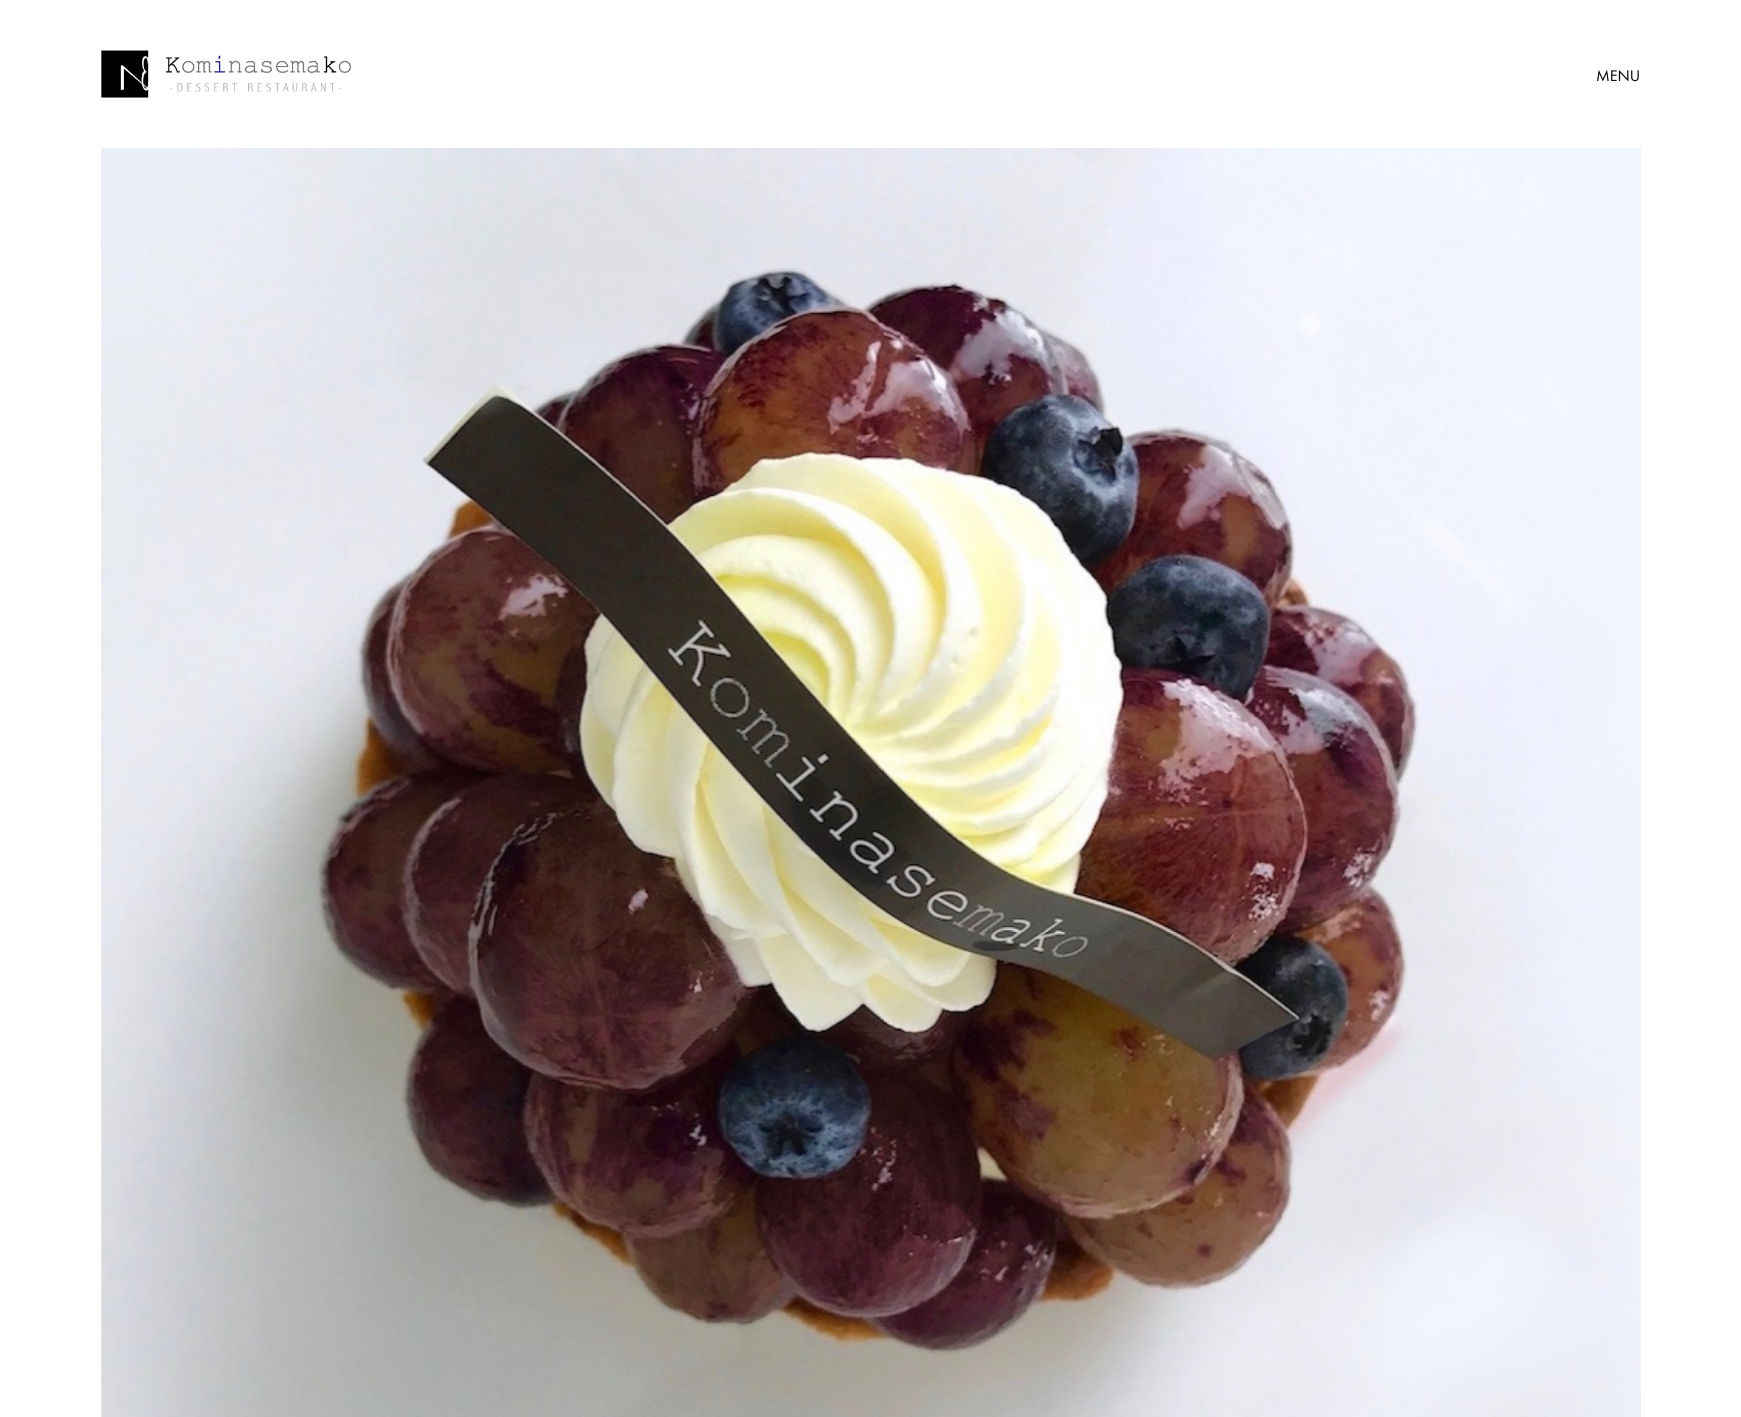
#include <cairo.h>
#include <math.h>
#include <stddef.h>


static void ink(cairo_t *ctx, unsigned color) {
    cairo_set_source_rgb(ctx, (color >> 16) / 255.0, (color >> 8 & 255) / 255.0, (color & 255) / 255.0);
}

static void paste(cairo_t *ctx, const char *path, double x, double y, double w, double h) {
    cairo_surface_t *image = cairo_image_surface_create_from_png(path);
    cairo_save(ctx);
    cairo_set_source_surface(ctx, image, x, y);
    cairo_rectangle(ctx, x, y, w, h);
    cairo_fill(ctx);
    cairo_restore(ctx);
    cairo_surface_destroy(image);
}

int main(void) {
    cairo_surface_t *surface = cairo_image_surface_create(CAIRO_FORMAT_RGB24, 1741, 1417);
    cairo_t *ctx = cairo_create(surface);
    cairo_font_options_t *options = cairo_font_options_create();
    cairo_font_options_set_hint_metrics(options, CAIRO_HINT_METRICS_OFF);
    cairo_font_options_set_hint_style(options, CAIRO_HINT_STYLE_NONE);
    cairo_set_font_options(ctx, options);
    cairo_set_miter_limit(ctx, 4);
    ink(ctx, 0xFFFFFF);
    cairo_paint(ctx);
    paste(ctx, "media/1.png", 101, 50, 250, 48);
    cairo_select_font_face(ctx, "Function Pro", CAIRO_FONT_SLANT_NORMAL, CAIRO_FONT_WEIGHT_NORMAL);
    cairo_set_font_size(ctx, 16);
    ink(ctx, 0x000000);
    cairo_move_to(ctx, 1596, 81);
    cairo_show_text(ctx, "MENU");
    ink(ctx, 0xEEEEEE);
    cairo_rectangle(ctx, 101, 148, 1540, 1269);
    cairo_fill(ctx);
    paste(ctx, "media/2.png", 101, 148, 1540, 1269);
    cairo_surface_write_to_png(surface, "image.png");
    cairo_font_options_destroy(options);
    cairo_destroy(ctx);
    cairo_surface_destroy(surface);
    return 0;
}
